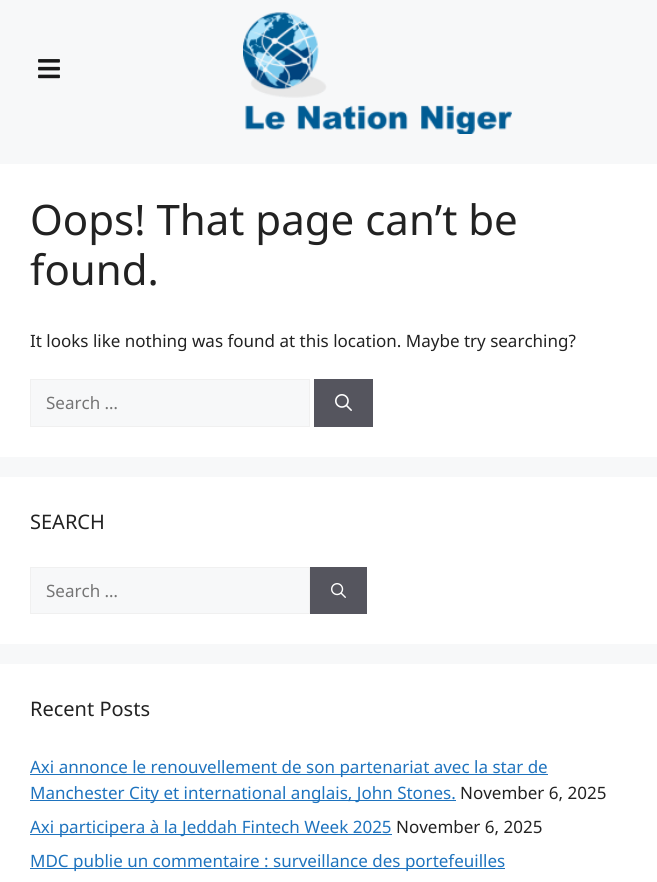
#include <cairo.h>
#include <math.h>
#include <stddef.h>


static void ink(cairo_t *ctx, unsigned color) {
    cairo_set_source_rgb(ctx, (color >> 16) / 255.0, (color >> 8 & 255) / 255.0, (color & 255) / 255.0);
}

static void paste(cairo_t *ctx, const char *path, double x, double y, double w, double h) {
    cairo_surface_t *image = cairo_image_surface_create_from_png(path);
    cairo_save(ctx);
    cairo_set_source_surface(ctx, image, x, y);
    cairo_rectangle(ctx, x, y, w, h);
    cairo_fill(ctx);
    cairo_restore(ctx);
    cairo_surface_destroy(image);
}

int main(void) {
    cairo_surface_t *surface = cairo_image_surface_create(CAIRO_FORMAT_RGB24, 657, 882);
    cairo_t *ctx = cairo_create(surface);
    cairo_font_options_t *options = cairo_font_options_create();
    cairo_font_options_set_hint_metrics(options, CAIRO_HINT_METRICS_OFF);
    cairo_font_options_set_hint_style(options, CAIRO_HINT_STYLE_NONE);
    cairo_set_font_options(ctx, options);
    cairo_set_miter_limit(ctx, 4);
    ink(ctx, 0xF7F8F9);
    cairo_paint(ctx);
    paste(ctx, "media/1.png", 38, 59, 22, 20);
    paste(ctx, "media/2.png", 243, 12, 269, 122);
    ink(ctx, 0xFFFFFF);
    cairo_rectangle(ctx, 0, 164, 657, 293);
    cairo_fill(ctx);
    cairo_select_font_face(ctx, "Noto Sans", CAIRO_FONT_SLANT_NORMAL, CAIRO_FONT_WEIGHT_NORMAL);
    cairo_set_font_size(ctx, 42);
    ink(ctx, 0x222222);
    cairo_move_to(ctx, 30, 235);
    cairo_show_text(ctx, "Oops! That page can’t be");
    cairo_move_to(ctx, 30, 285);
    cairo_show_text(ctx, "found.");
    cairo_set_font_size(ctx, 17);
    cairo_move_to(ctx, 30, 347);
    cairo_show_text(ctx, "It looks like nothing was found at this location. Maybe try searching?");
    ink(ctx, 0xF7F8F9);
    cairo_rectangle(ctx, 30.5, 379.5, 279, 47);
    cairo_fill_preserve(ctx);
    ink(ctx, 0xF0F0F0);
    cairo_set_line_width(ctx, 1);
    cairo_stroke(ctx);
    ink(ctx, 0x757575);
    cairo_move_to(ctx, 46, 409);
    cairo_show_text(ctx, "Search …");
    ink(ctx, 0x55555E);
    cairo_rectangle(ctx, 314, 379, 59, 48);
    cairo_fill(ctx);
    paste(ctx, "media/3.png", 335, 394, 17, 17);
    ink(ctx, 0xFFFFFF);
    cairo_rectangle(ctx, 0, 477, 657, 167);
    cairo_fill(ctx);
    cairo_set_font_size(ctx, 20);
    ink(ctx, 0x222222);
    cairo_move_to(ctx, 30, 529);
    cairo_show_text(ctx, "SEARCH");
    ink(ctx, 0xF7F8F9);
    cairo_rectangle(ctx, 30.5, 567.5, 279, 46);
    cairo_fill_preserve(ctx);
    ink(ctx, 0xF0F0F0);
    cairo_stroke(ctx);
    cairo_set_font_size(ctx, 17);
    ink(ctx, 0x757575);
    cairo_move_to(ctx, 46, 597);
    cairo_show_text(ctx, "Search …");
    ink(ctx, 0x55555E);
    cairo_rectangle(ctx, 310, 567, 57, 47);
    cairo_fill(ctx);
    paste(ctx, "media/4.png", 331, 583, 15, 15);
    ink(ctx, 0xFFFFFF);
    cairo_rectangle(ctx, 0, 664, 657, 218);
    cairo_fill(ctx);
    cairo_set_font_size(ctx, 20);
    ink(ctx, 0x222222);
    cairo_move_to(ctx, 30, 716);
    cairo_show_text(ctx, "Recent Posts");
    ink(ctx, 0x1E73BE);
    cairo_rectangle(ctx, 30, 774, 518, 1);
    cairo_fill(ctx);
    cairo_set_font_size(ctx, 17);
    cairo_move_to(ctx, 30, 773);
    cairo_show_text(ctx, "Axi annonce le renouvellement de son partenariat avec la star de");
    cairo_rectangle(ctx, 30, 800, 426, 1);
    cairo_fill(ctx);
    cairo_move_to(ctx, 30, 799);
    cairo_show_text(ctx, "Manchester City et international anglais, John Stones.");
    ink(ctx, 0x222222);
    cairo_move_to(ctx, 460, 799);
    cairo_show_text(ctx, "November 6, 2025");
    ink(ctx, 0x1E73BE);
    cairo_rectangle(ctx, 30, 834, 362, 1);
    cairo_fill(ctx);
    cairo_move_to(ctx, 30, 833);
    cairo_show_text(ctx, "Axi participera à la Jeddah Fintech Week 2025");
    ink(ctx, 0x222222);
    cairo_move_to(ctx, 396, 833);
    cairo_show_text(ctx, "November 6, 2025");
    ink(ctx, 0x1E73BE);
    cairo_rectangle(ctx, 30, 868, 475, 1);
    cairo_fill(ctx);
    cairo_move_to(ctx, 30, 867);
    cairo_show_text(ctx, "MDC publie un commentaire : surveillance des portefeuilles");
    cairo_surface_write_to_png(surface, "image.png");
    cairo_font_options_destroy(options);
    cairo_destroy(ctx);
    cairo_surface_destroy(surface);
    return 0;
}
